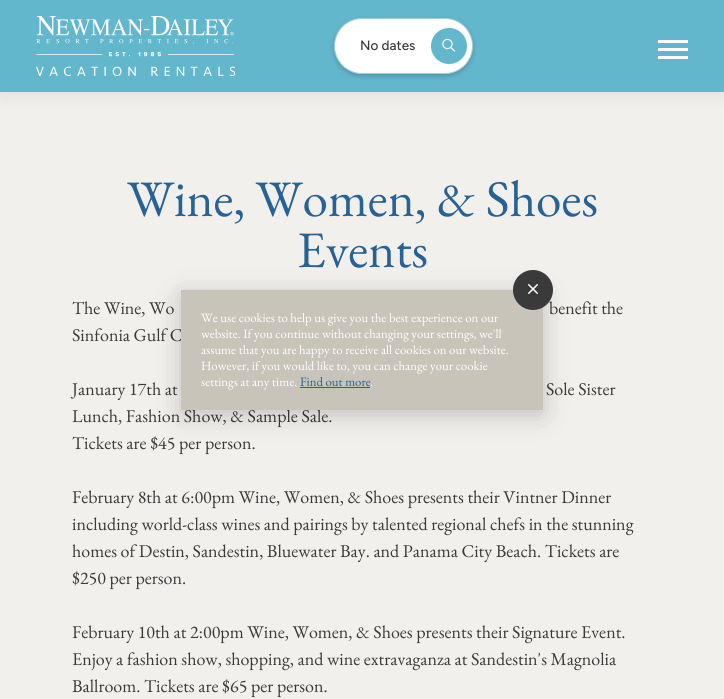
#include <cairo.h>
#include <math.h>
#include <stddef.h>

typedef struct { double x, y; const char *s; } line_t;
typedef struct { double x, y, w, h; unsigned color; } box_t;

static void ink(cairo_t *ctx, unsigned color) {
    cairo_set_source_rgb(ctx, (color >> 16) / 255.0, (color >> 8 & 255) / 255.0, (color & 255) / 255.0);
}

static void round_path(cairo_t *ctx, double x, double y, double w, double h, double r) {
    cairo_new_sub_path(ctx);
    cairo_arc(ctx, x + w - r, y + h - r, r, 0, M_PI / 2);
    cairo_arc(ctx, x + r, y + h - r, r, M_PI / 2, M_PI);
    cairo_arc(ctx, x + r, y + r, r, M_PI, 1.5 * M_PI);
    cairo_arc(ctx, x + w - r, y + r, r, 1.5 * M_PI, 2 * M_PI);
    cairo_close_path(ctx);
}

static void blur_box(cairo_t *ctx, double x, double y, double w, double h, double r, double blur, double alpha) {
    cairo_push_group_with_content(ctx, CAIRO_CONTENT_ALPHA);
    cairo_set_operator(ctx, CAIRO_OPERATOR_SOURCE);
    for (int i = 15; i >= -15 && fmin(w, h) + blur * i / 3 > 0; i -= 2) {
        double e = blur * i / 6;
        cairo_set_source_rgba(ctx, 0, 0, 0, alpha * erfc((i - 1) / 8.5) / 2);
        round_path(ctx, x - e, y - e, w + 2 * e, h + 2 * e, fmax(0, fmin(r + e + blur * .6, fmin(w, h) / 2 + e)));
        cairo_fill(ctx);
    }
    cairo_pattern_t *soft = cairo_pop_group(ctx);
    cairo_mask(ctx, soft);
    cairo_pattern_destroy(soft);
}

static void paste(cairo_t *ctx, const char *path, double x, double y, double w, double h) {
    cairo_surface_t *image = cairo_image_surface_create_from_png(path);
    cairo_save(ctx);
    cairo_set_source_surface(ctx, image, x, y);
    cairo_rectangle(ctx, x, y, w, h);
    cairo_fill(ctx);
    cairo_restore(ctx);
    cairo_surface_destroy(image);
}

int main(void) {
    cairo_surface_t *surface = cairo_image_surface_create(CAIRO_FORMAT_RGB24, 724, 699);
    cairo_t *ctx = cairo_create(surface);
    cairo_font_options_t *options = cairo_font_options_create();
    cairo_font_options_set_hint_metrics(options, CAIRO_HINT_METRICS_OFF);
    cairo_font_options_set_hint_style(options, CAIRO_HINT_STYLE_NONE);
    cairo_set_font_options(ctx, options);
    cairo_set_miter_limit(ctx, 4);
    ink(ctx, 0xF1F0ED);
    cairo_paint(ctx);
    ink(ctx, 0x000000);
    blur_box(ctx, 0, 0, 724, 92, 0, 10, 0.1);
    ink(ctx, 0x62B7CD);
    cairo_rectangle(ctx, 0, 0, 724, 92);
    cairo_fill(ctx);
    paste(ctx, "media/1.png", 36, 16, 199, 60);
    ink(ctx, 0x000000);
    blur_box(ctx, 334, 20, 139, 56, 28, 2.5, 0.2);
    ink(ctx, 0xFFFFFF);
    round_path(ctx, 334.5, 18.5, 138, 55, 27.5);
    cairo_fill_preserve(ctx);
    ink(ctx, 0xA6D1D6);
    cairo_set_line_width(ctx, 1);
    cairo_stroke(ctx);
    cairo_select_font_face(ctx, "Figtree Light", CAIRO_FONT_SLANT_NORMAL, CAIRO_FONT_WEIGHT_NORMAL);
    cairo_set_font_size(ctx, 13.5);
    ink(ctx, 0x3A3A3A);
    cairo_move_to(ctx, 360, 50);
    cairo_show_text(ctx, "No dates");
    ink(ctx, 0x62B7CD);
    cairo_new_path(ctx);
    cairo_arc(ctx, 449, 46, 18, 0, 2 * M_PI);
    cairo_fill(ctx);
    paste(ctx, "media/2.png", 442, 38, 13, 14);
    {
        static const box_t items[] = {
            {658, 48, 30, 3, 0xFFFFFF},
            {658, 40, 30, 3, 0xFFFFFF},
            {658, 56, 30, 3, 0xFFFFFF},
        };
        for (size_t i = 0; i < sizeof items / sizeof *items; i++) {
            ink(ctx, items[i].color);
            cairo_rectangle(ctx, items[i].x, items[i].y, items[i].w, items[i].h);
            cairo_fill(ctx);
        }
    }
    cairo_select_font_face(ctx, "EB Garamond", CAIRO_FONT_SLANT_NORMAL, CAIRO_FONT_WEIGHT_NORMAL);
    cairo_set_font_size(ctx, 51.25);
    ink(ctx, 0x266295);
    cairo_move_to(ctx, 127, 216);
    cairo_show_text(ctx, "Wine, Women, & Shoes");
    cairo_move_to(ctx, 297, 267);
    cairo_show_text(ctx, "Events");
    cairo_set_font_size(ctx, 18);
    ink(ctx, 0x3A3A3A);
    {
        static const line_t items[] = {
            {72, 314, "The Wine, Wo"},
            {549, 314, "benefit the"},
            {72, 341, "Sinfonia Gulf C"},
            {72, 395, "January 17th at"},
            {546, 395, "Sole Sister"},
            {72, 422, "Lunch, Fashion Show, & Sample Sale."},
            {72, 449, "Tickets are $45 per person."},
            {72, 503, "February 8th at 6:00pm Wine, Women, & Shoes presents their Vintner Dinner"},
            {72, 530, "including world-class wines and pairings by talented regional chefs in the stunning"},
            {72, 557, "homes of Destin, Sandestin, Bluewater Bay. and Panama City Beach. Tickets are"},
            {72, 584, "$250 per person."},
            {72, 638, "February 10th at 2:00pm Wine, Women, & Shoes presents their Signature Event."},
            {72, 665, "Enjoy a fashion show, shopping, and wine extravaganza at Sandestin's Magnolia"},
            {72, 692, "Ballroom. Tickets are $65 per person."},
        };
        for (size_t i = 0; i < sizeof items / sizeof *items; i++) {
            cairo_move_to(ctx, items[i].x, items[i].y);
            cairo_show_text(ctx, items[i].s);
        }
    }
    ink(ctx, 0x000000);
    blur_box(ctx, 181, 295, 362, 120, 0, 12.5, 0.2);
    ink(ctx, 0xC8C4BA);
    cairo_rectangle(ctx, 181, 290, 362, 120);
    cairo_fill(ctx);
    ink(ctx, 0x3A3A3A);
    cairo_arc(ctx, 533, 290, 20, 0, 2 * M_PI);
    cairo_fill(ctx);
    paste(ctx, "media/3.png", 528, 284, 10, 10);
    cairo_set_font_size(ctx, 12.8);
    ink(ctx, 0xFFFFFF);
    {
        static const line_t items[] = {
            {201, 322, "We use cookies to help us give you the best experience on our"},
            {201, 338, "website. If you continue without changing your settings, we'll"},
            {201, 354, "assume that you are happy to receive all cookies on our website."},
            {201, 370, "However, if you would like to, you can change your cookie"},
            {201, 386, "settings at any time."},
        };
        for (size_t i = 0; i < sizeof items / sizeof *items; i++) {
            cairo_move_to(ctx, items[i].x, items[i].y);
            cairo_show_text(ctx, items[i].s);
        }
    }
    ink(ctx, 0x266295);
    cairo_move_to(ctx, 300, 386);
    cairo_show_text(ctx, "Find out more");
    cairo_rectangle(ctx, 300, 387, 70, 1);
    cairo_fill(ctx);
    ink(ctx, 0xFFFFFF);
    cairo_move_to(ctx, 370, 386);
    cairo_show_text(ctx, ".");
    cairo_surface_write_to_png(surface, "image.png");
    cairo_font_options_destroy(options);
    cairo_destroy(ctx);
    cairo_surface_destroy(surface);
    return 0;
}
